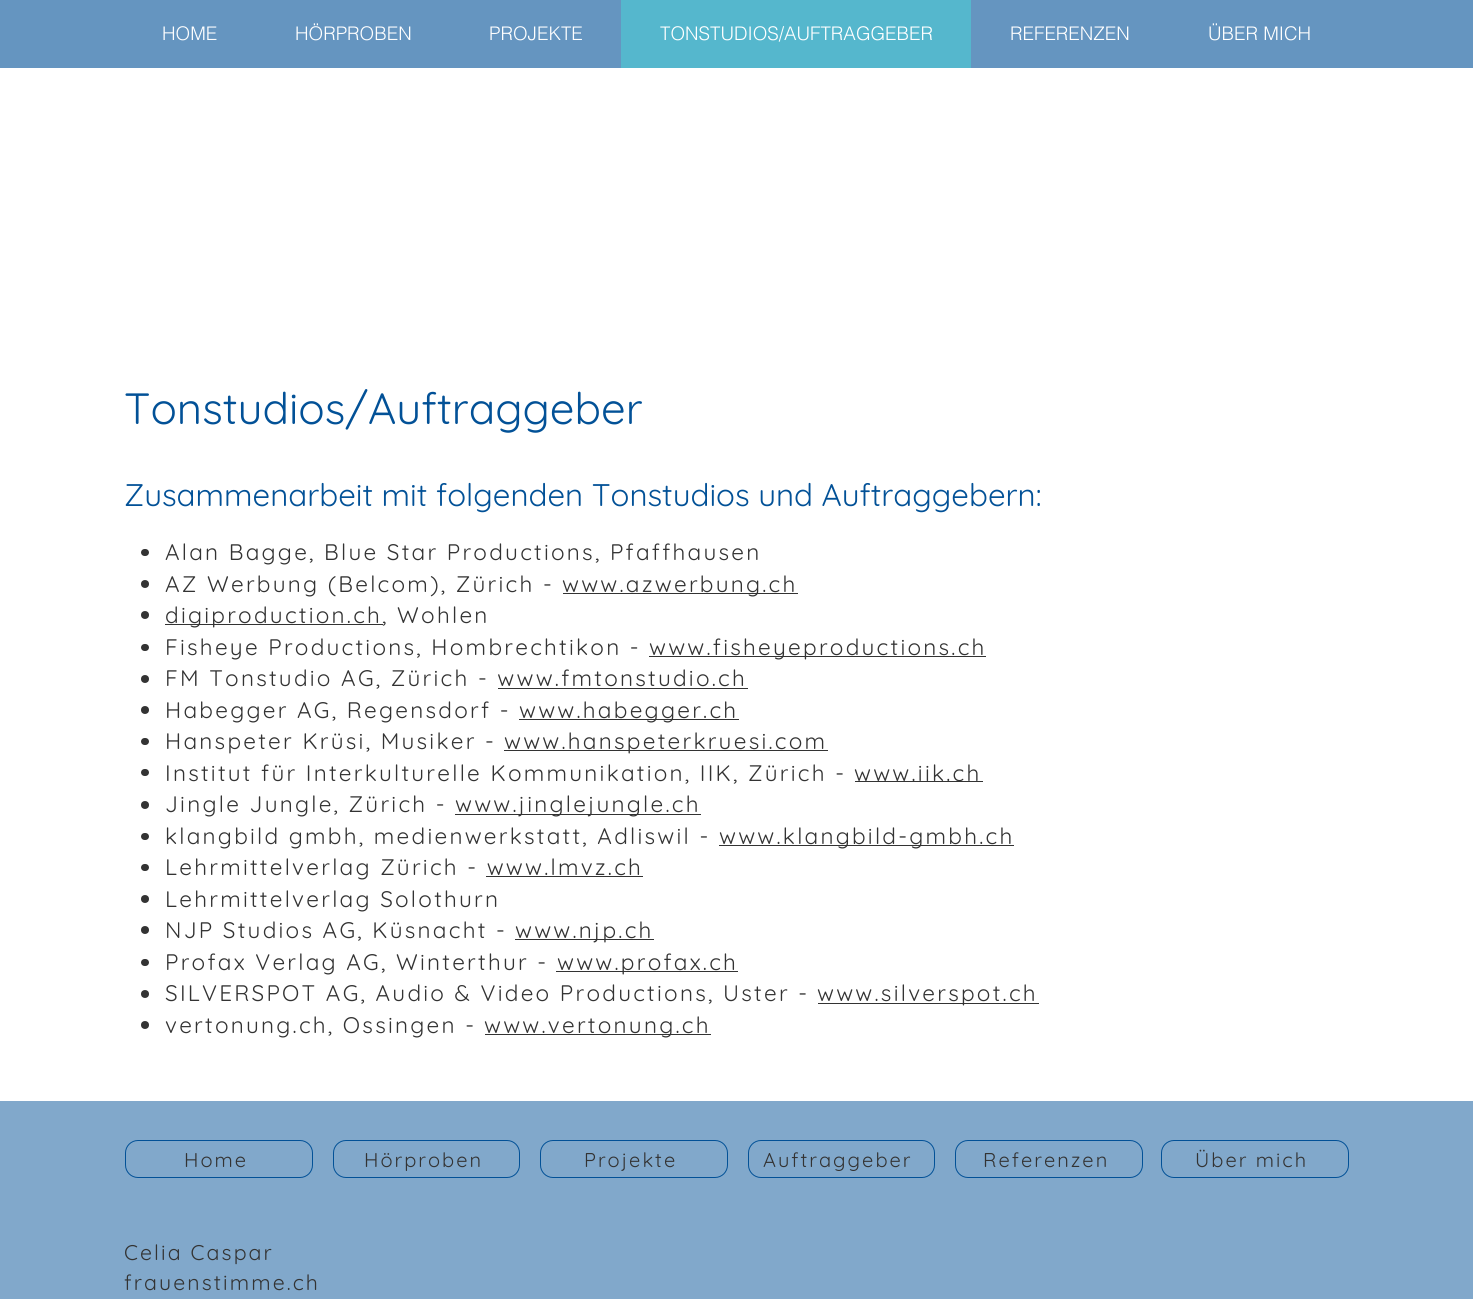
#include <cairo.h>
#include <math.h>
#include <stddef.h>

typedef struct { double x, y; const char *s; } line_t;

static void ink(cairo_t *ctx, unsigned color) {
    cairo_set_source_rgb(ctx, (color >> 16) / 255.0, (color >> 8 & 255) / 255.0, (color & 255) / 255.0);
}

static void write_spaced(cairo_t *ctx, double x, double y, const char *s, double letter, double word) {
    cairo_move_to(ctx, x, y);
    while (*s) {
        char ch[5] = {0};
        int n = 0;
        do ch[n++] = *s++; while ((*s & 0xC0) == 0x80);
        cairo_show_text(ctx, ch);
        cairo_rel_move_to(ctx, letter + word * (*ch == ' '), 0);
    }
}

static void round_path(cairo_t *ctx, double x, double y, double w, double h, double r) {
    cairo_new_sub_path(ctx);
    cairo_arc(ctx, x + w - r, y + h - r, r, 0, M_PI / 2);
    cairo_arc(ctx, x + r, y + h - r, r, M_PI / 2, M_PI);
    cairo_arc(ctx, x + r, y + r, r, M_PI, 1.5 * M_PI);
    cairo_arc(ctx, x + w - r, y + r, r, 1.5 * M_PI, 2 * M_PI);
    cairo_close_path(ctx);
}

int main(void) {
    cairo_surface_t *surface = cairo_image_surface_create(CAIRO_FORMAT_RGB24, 1473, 1299);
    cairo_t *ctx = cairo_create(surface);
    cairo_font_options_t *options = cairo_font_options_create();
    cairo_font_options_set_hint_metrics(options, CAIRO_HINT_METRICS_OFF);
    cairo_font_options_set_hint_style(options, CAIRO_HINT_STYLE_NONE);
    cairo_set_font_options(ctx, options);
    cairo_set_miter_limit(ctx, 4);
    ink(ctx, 0xFFFFFF);
    cairo_paint(ctx);
    ink(ctx, 0x6595C0);
    cairo_rectangle(ctx, 0, 0, 1473, 68);
    cairo_fill(ctx);
    cairo_select_font_face(ctx, "helvetica Light", CAIRO_FONT_SLANT_NORMAL, CAIRO_FONT_WEIGHT_NORMAL);
    cairo_set_font_size(ctx, 18.75);
    ink(ctx, 0xFFFFFF);
    {
        static const line_t items[] = {
            {162, 40, "HOME"},
            {295, 40, "HÖRPROBEN"},
            {489, 40, "PROJEKTE"},
        };
        for (size_t i = 0; i < sizeof items / sizeof *items; i++) {
            cairo_move_to(ctx, items[i].x, items[i].y);
            cairo_show_text(ctx, items[i].s);
        }
    }
    ink(ctx, 0x55B7CD);
    cairo_rectangle(ctx, 621, 0, 350, 68);
    cairo_fill(ctx);
    ink(ctx, 0xFFFFFF);
    {
        static const line_t items[] = {
            {660, 40, "TONSTUDIOS/AUFTRAGGEBER"},
            {1010, 40, "REFERENZEN"},
            {1208, 40, "ÜBER MICH"},
        };
        for (size_t i = 0; i < sizeof items / sizeof *items; i++) {
            cairo_move_to(ctx, items[i].x, items[i].y);
            cairo_show_text(ctx, items[i].s);
        }
    }
    cairo_select_font_face(ctx, "Quicksand", CAIRO_FONT_SLANT_NORMAL, CAIRO_FONT_WEIGHT_NORMAL);
    cairo_set_font_size(ctx, 43.75);
    ink(ctx, 0x025197);
    cairo_move_to(ctx, 124, 424);
    cairo_show_text(ctx, "Tonstudios/Auftraggeber");
    cairo_set_font_size(ctx, 31.25);
    cairo_move_to(ctx, 124, 506);
    cairo_show_text(ctx, "Zusammenarbeit mit folgenden Tonstudios und Auftraggebern:");
    ink(ctx, 0x333333);
    round_path(ctx, 141, 549, 8, 7, 3.5);
    cairo_fill(ctx);
    cairo_set_font_size(ctx, 22.5);
    write_spaced(ctx, 165, 560, "Alan Bagge, Blue Star Productions, Pfaffhausen", 2.25, 0);
    cairo_new_path(ctx);
    cairo_arc(ctx, 145, 584, 4, 0, 2 * M_PI);
    cairo_fill(ctx);
    write_spaced(ctx, 165, 592, "AZ Werbung (Belcom), Zürich -", 2.25, 0);
    cairo_rectangle(ctx, 563, 593, 235, 1);
    cairo_fill(ctx);
    write_spaced(ctx, 562, 592, "www.azwerbung.ch", 2.25, 0);
    cairo_new_path(ctx);
    cairo_arc(ctx, 145, 615, 4, 0, 2 * M_PI);
    cairo_fill(ctx);
    cairo_rectangle(ctx, 165, 624, 218, 1);
    cairo_fill(ctx);
    write_spaced(ctx, 165, 623, "digiproduction.ch, Wohlen", 2.25, 0);
    round_path(ctx, 141, 644, 8, 7, 3.5);
    cairo_fill(ctx);
    write_spaced(ctx, 165, 655, "Fisheye Productions, Hombrechtikon -", 2.25, 0);
    cairo_rectangle(ctx, 649, 656, 337, 1);
    cairo_fill(ctx);
    write_spaced(ctx, 649, 655, "www.fisheyeproductions.ch", 2.25, 0);
    cairo_new_path(ctx);
    cairo_arc(ctx, 145, 679, 4, 0, 2 * M_PI);
    cairo_fill(ctx);
    write_spaced(ctx, 165, 686, "FM Tonstudio AG, Zürich - www.fmtonstudio.ch", 2.25, 0);
    cairo_rectangle(ctx, 498, 688, 250, 1);
    cairo_fill(ctx);
    cairo_arc(ctx, 145, 710, 4, 0, 2 * M_PI);
    cairo_fill(ctx);
    write_spaced(ctx, 165, 718, "Habegger AG, Regensdorf -", 2.25, 0);
    cairo_rectangle(ctx, 519, 719, 220, 1);
    cairo_fill(ctx);
    write_spaced(ctx, 519, 718, "www.habegger.ch", 2.25, 0);
    round_path(ctx, 141, 738, 8, 7, 3.5);
    cairo_fill(ctx);
    write_spaced(ctx, 165, 749, "Hanspeter Krüsi, Musiker -", 2.25, 0);
    cairo_rectangle(ctx, 504, 750, 324, 1);
    cairo_fill(ctx);
    write_spaced(ctx, 504, 749, "www.hanspeterkruesi.com", 2.25, 0);
    round_path(ctx, 141, 769, 8, 7, 3.5);
    cairo_fill(ctx);
    write_spaced(ctx, 165, 781, "Institut für Interkulturelle Kommunikation, IIK, Zürich -", 2.25, 0);
    cairo_rectangle(ctx, 855, 781, 128, 1);
    cairo_fill(ctx);
    write_spaced(ctx, 854, 781, "www.iik.ch", 2.25, 0);
    cairo_new_path(ctx);
    cairo_arc(ctx, 145, 805, 4, 0, 2 * M_PI);
    cairo_fill(ctx);
    write_spaced(ctx, 165, 812, "Jingle Jungle, Zürich -", 2.25, 0);
    cairo_rectangle(ctx, 455, 814, 246, 1);
    cairo_fill(ctx);
    write_spaced(ctx, 455, 812, "www.jinglejungle.ch", 2.25, 0);
    round_path(ctx, 141, 833, 8, 7, 3.5);
    cairo_fill(ctx);
    write_spaced(ctx, 165, 844, "klangbild gmbh, medienwerkstatt, Adliswil -", 2.25, 0);
    cairo_rectangle(ctx, 719, 845, 295, 1);
    cairo_fill(ctx);
    write_spaced(ctx, 719, 844, "www.klangbild-gmbh.ch", 2.25, 0);
    round_path(ctx, 141, 864, 8, 7, 3.5);
    cairo_fill(ctx);
    write_spaced(ctx, 165, 875, "Lehrmittelverlag Zürich - www.lmvz.ch", 2.25, 0);
    cairo_rectangle(ctx, 486, 876, 157, 1);
    cairo_fill(ctx);
    cairo_arc(ctx, 145, 899, 4, 0, 2 * M_PI);
    cairo_fill(ctx);
    write_spaced(ctx, 165, 907, "Lehrmittelverlag Solothurn", 2.25, 0);
    cairo_new_path(ctx);
    cairo_arc(ctx, 145, 930, 4, 0, 2 * M_PI);
    cairo_fill(ctx);
    write_spaced(ctx, 165, 938, "NJP Studios AG, Küsnacht -", 2.25, 0);
    cairo_rectangle(ctx, 515, 939, 139, 1);
    cairo_fill(ctx);
    write_spaced(ctx, 515, 938, "www.njp.ch", 2.25, 0);
    round_path(ctx, 141, 959, 8, 7, 3.5);
    cairo_fill(ctx);
    write_spaced(ctx, 165, 970, "Profax Verlag AG, Winterthur -", 2.25, 0);
    cairo_rectangle(ctx, 556, 971, 182, 1);
    cairo_fill(ctx);
    write_spaced(ctx, 557, 970, "www.profax.ch", 2.25, 0);
    cairo_new_path(ctx);
    cairo_arc(ctx, 145, 994, 4, 0, 2 * M_PI);
    cairo_fill(ctx);
    write_spaced(ctx, 165, 1001, "SILVERSPOT AG, Audio & Video Productions, Uster -", 2.25, 0);
    cairo_rectangle(ctx, 818, 1003, 221, 1);
    cairo_fill(ctx);
    write_spaced(ctx, 817, 1001, "www.silverspot.ch", 2.25, 0);
    cairo_new_path(ctx);
    cairo_arc(ctx, 145, 1025, 4, 0, 2 * M_PI);
    cairo_fill(ctx);
    write_spaced(ctx, 165, 1033, "vertonung.ch, Ossingen -", 2.25, 0);
    cairo_rectangle(ctx, 485, 1034, 226, 1);
    cairo_fill(ctx);
    write_spaced(ctx, 484, 1033, "www.vertonung.ch", 2.25, 0);
    ink(ctx, 0x81A8CB);
    cairo_rectangle(ctx, 0, 1101, 1473, 198);
    cairo_fill(ctx);
    round_path(ctx, 125.5, 1140.5, 187, 37, 12.5);
    ink(ctx, 0x025197);
    cairo_set_line_width(ctx, 1);
    cairo_stroke(ctx);
    cairo_set_font_size(ctx, 20);
    ink(ctx, 0x333333);
    write_spaced(ctx, 184, 1167, "Home", 2, 0);
    round_path(ctx, 333.5, 1140.5, 186, 37, 12.5);
    ink(ctx, 0x025197);
    cairo_stroke(ctx);
    ink(ctx, 0x333333);
    write_spaced(ctx, 364, 1167, "Hörproben", 2, 0);
    round_path(ctx, 540.5, 1140.5, 187, 37, 12.5);
    ink(ctx, 0x025197);
    cairo_stroke(ctx);
    ink(ctx, 0x333333);
    write_spaced(ctx, 584, 1167, "Projekte", 2, 0);
    round_path(ctx, 748.5, 1140.5, 186, 37, 12.5);
    ink(ctx, 0x025197);
    cairo_stroke(ctx);
    ink(ctx, 0x333333);
    write_spaced(ctx, 763, 1167, "Auftraggeber", 2, 0);
    round_path(ctx, 955.5, 1140.5, 187, 37, 12.5);
    ink(ctx, 0x025197);
    cairo_stroke(ctx);
    ink(ctx, 0x333333);
    write_spaced(ctx, 983, 1167, "Referenzen", 2, 0);
    round_path(ctx, 1161.5, 1140.5, 187, 37, 12.5);
    ink(ctx, 0x025197);
    cairo_stroke(ctx);
    ink(ctx, 0x333333);
    write_spaced(ctx, 1195, 1167, "Über mich", 2, 0);
    cairo_set_font_size(ctx, 21.25);
    write_spaced(ctx, 124, 1260, "Celia Caspar", 2.1, 0);
    write_spaced(ctx, 124, 1290, "frauenstimme.ch", 2.1, 0);
    cairo_surface_write_to_png(surface, "image.png");
    cairo_font_options_destroy(options);
    cairo_destroy(ctx);
    cairo_surface_destroy(surface);
    return 0;
}
